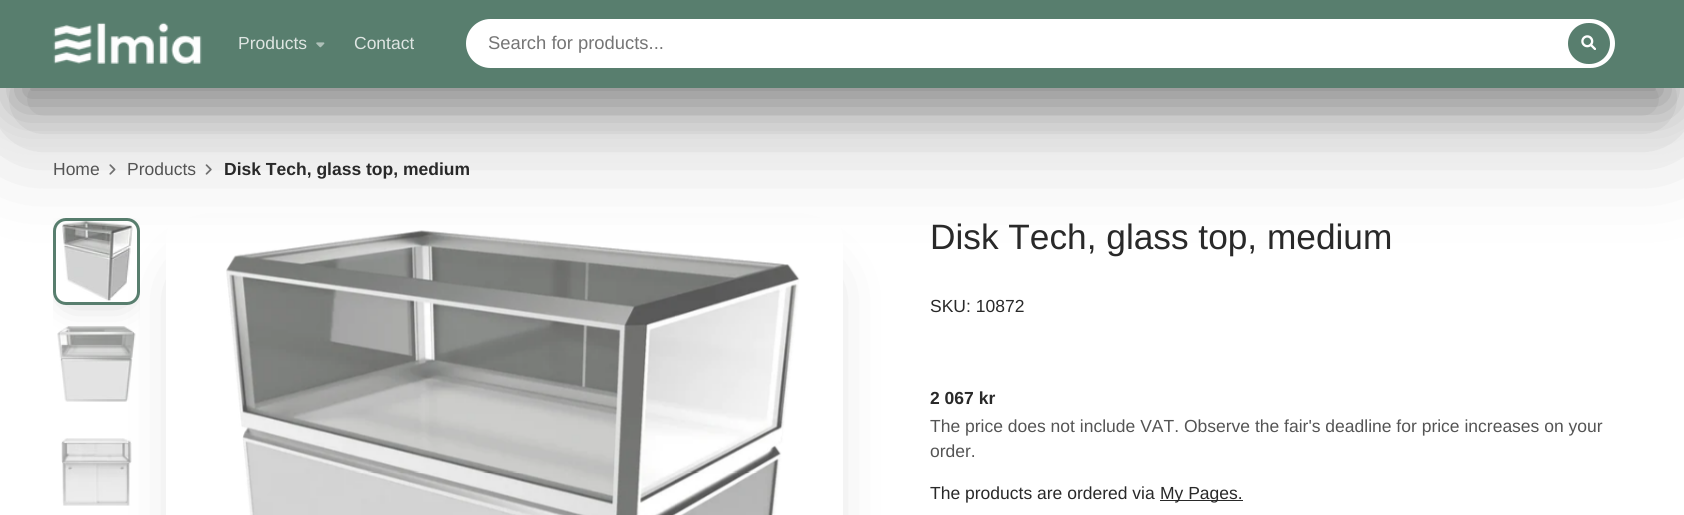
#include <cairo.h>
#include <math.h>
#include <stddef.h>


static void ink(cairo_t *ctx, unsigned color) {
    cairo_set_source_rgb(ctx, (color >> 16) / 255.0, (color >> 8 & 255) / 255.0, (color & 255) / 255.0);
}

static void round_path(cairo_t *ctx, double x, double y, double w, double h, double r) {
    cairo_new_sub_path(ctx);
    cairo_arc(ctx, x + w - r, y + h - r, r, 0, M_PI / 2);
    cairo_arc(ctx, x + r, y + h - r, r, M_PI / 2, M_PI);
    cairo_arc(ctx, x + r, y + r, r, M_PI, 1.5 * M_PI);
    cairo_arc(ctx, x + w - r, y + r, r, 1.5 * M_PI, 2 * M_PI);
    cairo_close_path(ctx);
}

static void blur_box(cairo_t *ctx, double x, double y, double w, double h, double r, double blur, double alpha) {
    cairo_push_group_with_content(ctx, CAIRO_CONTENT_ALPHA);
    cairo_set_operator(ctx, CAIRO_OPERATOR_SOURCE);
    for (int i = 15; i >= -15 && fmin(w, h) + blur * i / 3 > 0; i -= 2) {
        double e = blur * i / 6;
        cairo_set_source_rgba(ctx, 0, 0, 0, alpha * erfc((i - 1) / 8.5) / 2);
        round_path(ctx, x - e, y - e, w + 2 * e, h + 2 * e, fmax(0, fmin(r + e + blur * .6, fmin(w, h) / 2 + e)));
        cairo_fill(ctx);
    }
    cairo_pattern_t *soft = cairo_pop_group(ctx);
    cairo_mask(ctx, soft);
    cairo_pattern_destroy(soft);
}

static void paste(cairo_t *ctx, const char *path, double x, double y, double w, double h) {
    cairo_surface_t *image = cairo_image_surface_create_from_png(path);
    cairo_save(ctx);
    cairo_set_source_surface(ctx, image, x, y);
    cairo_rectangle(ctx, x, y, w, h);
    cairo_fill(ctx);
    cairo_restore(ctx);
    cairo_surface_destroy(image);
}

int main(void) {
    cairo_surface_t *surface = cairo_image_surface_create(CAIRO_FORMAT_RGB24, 1684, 515);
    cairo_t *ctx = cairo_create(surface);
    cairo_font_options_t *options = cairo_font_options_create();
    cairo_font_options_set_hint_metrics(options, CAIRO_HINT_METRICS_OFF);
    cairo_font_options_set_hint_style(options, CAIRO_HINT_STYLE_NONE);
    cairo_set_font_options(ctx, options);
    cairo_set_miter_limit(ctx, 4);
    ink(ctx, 0xFFFFFF);
    cairo_paint(ctx);
    paste(ctx, "media/4.png", 109, 164, 7, 11);
    paste(ctx, "media/5.png", 205, 164, 7, 11);
    ink(ctx, 0x1C1C1C);
    blur_box(ctx, 18, 50, 1650, 53, 0, 24, 0.4);
    cairo_save(ctx);
    cairo_rectangle(ctx, 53, 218, 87, 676);
    cairo_clip(ctx);
    cairo_set_fill_rule(ctx, CAIRO_FILL_RULE_EVEN_ODD);
    cairo_new_path(ctx);
    cairo_move_to(ctx, 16, 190);
    cairo_line_to(ctx, 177, 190);
    cairo_line_to(ctx, 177, 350);
    cairo_line_to(ctx, 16, 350);
    cairo_close_path(ctx);
    cairo_move_to(ctx, 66, 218);
    cairo_line_to(ctx, 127, 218);
    cairo_curve_to(ctx, 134, 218, 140, 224, 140, 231);
    cairo_line_to(ctx, 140, 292);
    cairo_curve_to(ctx, 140, 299, 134, 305, 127, 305);
    cairo_line_to(ctx, 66, 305);
    cairo_curve_to(ctx, 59, 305, 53, 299, 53, 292);
    cairo_line_to(ctx, 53, 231);
    cairo_curve_to(ctx, 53, 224, 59, 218, 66, 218);
    cairo_close_path(ctx);
    cairo_clip(ctx);
    blur_box(ctx, 70, 244, 53, 52, 0, 17.5, 0.3);
    cairo_restore(ctx);
    round_path(ctx, 54.5, 219.5, 84, 84, 11.5);
    ink(ctx, 0x587E6E);
    cairo_set_line_width(ctx, 3);
    cairo_stroke(ctx);
    paste(ctx, "media/6.png", 62, 221, 71, 80);
    paste(ctx, "media/7.png", 57, 326, 79, 76);
    paste(ctx, "media/8.png", 61, 438, 71, 68);
    cairo_save(ctx);
    cairo_set_fill_rule(ctx, CAIRO_FILL_RULE_EVEN_ODD);
    cairo_new_path(ctx);
    cairo_move_to(ctx, 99, 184);
    cairo_line_to(ctx, 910, 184);
    cairo_line_to(ctx, 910, 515);
    cairo_line_to(ctx, 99, 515);
    cairo_close_path(ctx);
    cairo_move_to(ctx, 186, 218);
    cairo_line_to(ctx, 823, 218);
    cairo_curve_to(ctx, 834, 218, 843, 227, 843, 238);
    cairo_line_to(ctx, 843, 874);
    cairo_curve_to(ctx, 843, 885, 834, 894, 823, 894);
    cairo_line_to(ctx, 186, 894);
    cairo_curve_to(ctx, 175, 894, 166, 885, 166, 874);
    cairo_line_to(ctx, 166, 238);
    cairo_curve_to(ctx, 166, 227, 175, 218, 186, 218);
    cairo_close_path(ctx);
    cairo_clip(ctx);
    ink(ctx, 0x1C1C1C);
    blur_box(ctx, 199, 284, 611, 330, 0, 33, 0.3);
    cairo_restore(ctx);
    paste(ctx, "media/9.png", 226, 230, 574, 285);
    ink(ctx, 0x1C1C1C);
    blur_box(ctx, 18, 73, 1650, 52, 0, 54.5, 0.3);
    ink(ctx, 0x587E6E);
    cairo_rectangle(ctx, 0, 0, 1684, 88);
    cairo_fill(ctx);
    paste(ctx, "media/1.png", 53, 22, 149, 42);
    cairo_select_font_face(ctx, "Liberation Sans", CAIRO_FONT_SLANT_NORMAL, CAIRO_FONT_WEIGHT_NORMAL);
    cairo_set_font_size(ctx, 17.5);
    ink(ctx, 0xDEE5E2);
    cairo_move_to(ctx, 238, 49);
    cairo_show_text(ctx, "Products");
    paste(ctx, "media/2.png", 316, 42, 9, 6);
    cairo_move_to(ctx, 354, 49);
    cairo_show_text(ctx, "Contact");
    ink(ctx, 0xFFFFFF);
    round_path(ctx, 466, 19, 1149, 49, 24.5);
    cairo_fill(ctx);
    cairo_set_font_size(ctx, 18.4);
    ink(ctx, 0x757575);
    cairo_move_to(ctx, 488, 49);
    cairo_show_text(ctx, "Search for products...");
    ink(ctx, 0x587E6E);
    round_path(ctx, 1568, 23, 42, 41, 20.5);
    cairo_fill(ctx);
    paste(ctx, "media/3.png", 1581, 35, 15, 15);
    cairo_set_font_size(ctx, 17.5);
    ink(ctx, 0x545454);
    cairo_move_to(ctx, 53, 175);
    cairo_show_text(ctx, "Home");
    cairo_move_to(ctx, 127, 175);
    cairo_show_text(ctx, "Products");
    cairo_select_font_face(ctx, "Liberation Sans", CAIRO_FONT_SLANT_NORMAL, CAIRO_FONT_WEIGHT_BOLD);
    ink(ctx, 0x292929);
    cairo_move_to(ctx, 224, 175);
    cairo_show_text(ctx, "Disk Tech, glass top, medium");
    cairo_select_font_face(ctx, "Liberation Sans", CAIRO_FONT_SLANT_NORMAL, CAIRO_FONT_WEIGHT_NORMAL);
    cairo_set_font_size(ctx, 35.25);
    cairo_move_to(ctx, 930, 249);
    cairo_show_text(ctx, "Disk Tech, glass top, medium");
    cairo_set_font_size(ctx, 17.5);
    cairo_move_to(ctx, 930, 312);
    cairo_show_text(ctx, "SKU: 10872");
    cairo_select_font_face(ctx, "Liberation Sans", CAIRO_FONT_SLANT_NORMAL, CAIRO_FONT_WEIGHT_BOLD);
    cairo_move_to(ctx, 930, 404);
    cairo_show_text(ctx, "2 067 kr");
    cairo_select_font_face(ctx, "Liberation Sans", CAIRO_FONT_SLANT_NORMAL, CAIRO_FONT_WEIGHT_NORMAL);
    ink(ctx, 0x545454);
    cairo_move_to(ctx, 930, 432);
    cairo_show_text(ctx, "The price does not include VAT. Observe the fair's deadline for price increases on your");
    cairo_move_to(ctx, 930, 457);
    cairo_show_text(ctx, "order.");
    ink(ctx, 0x292929);
    cairo_move_to(ctx, 930, 499);
    cairo_show_text(ctx, "The products are ordered via");
    cairo_rectangle(ctx, 1160, 500, 83, 1);
    cairo_fill(ctx);
    cairo_move_to(ctx, 1160, 499);
    cairo_show_text(ctx, "My Pages.");
    cairo_surface_write_to_png(surface, "image.png");
    cairo_font_options_destroy(options);
    cairo_destroy(ctx);
    cairo_surface_destroy(surface);
    return 0;
}
